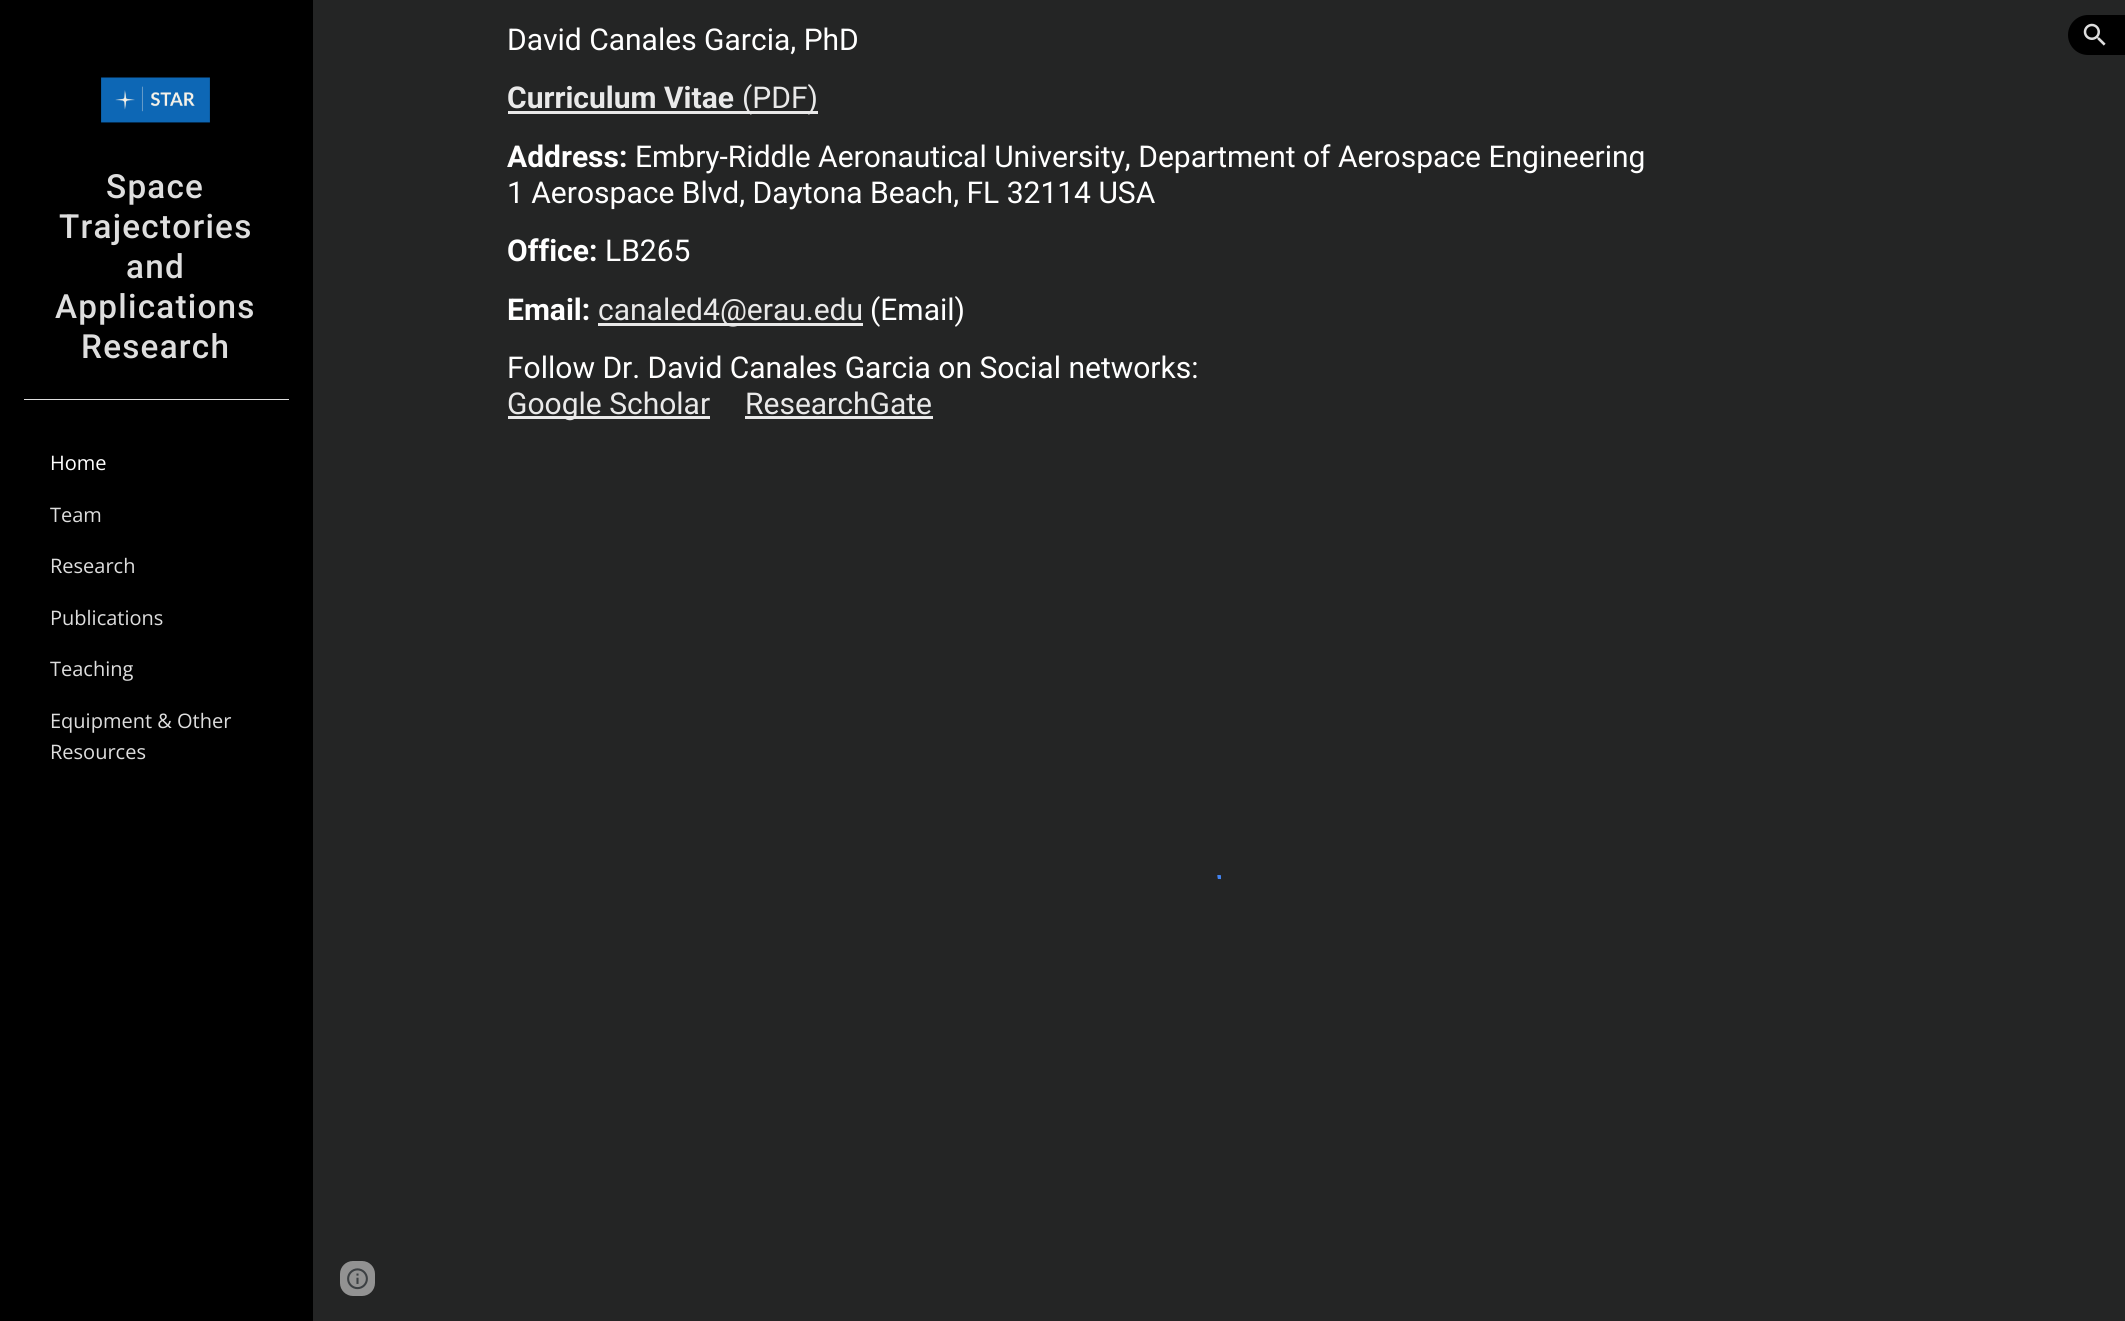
#include <cairo.h>
#include <math.h>
#include <stddef.h>

typedef struct { double x, y; const char *s; } line_t;

static void ink(cairo_t *ctx, unsigned color) {
    cairo_set_source_rgb(ctx, (color >> 16) / 255.0, (color >> 8 & 255) / 255.0, (color & 255) / 255.0);
}

static void write_spaced(cairo_t *ctx, double x, double y, const char *s, double letter, double word) {
    cairo_move_to(ctx, x, y);
    while (*s) {
        char ch[5] = {0};
        int n = 0;
        do ch[n++] = *s++; while ((*s & 0xC0) == 0x80);
        cairo_show_text(ctx, ch);
        cairo_rel_move_to(ctx, letter + word * (*ch == ' '), 0);
    }
}

static void round_path(cairo_t *ctx, double x, double y, double w, double h, double r) {
    cairo_new_sub_path(ctx);
    cairo_arc(ctx, x + w - r, y + h - r, r, 0, M_PI / 2);
    cairo_arc(ctx, x + r, y + h - r, r, M_PI / 2, M_PI);
    cairo_arc(ctx, x + r, y + r, r, M_PI, 1.5 * M_PI);
    cairo_arc(ctx, x + w - r, y + r, r, 1.5 * M_PI, 2 * M_PI);
    cairo_close_path(ctx);
}

static void paste(cairo_t *ctx, const char *path, double x, double y, double w, double h) {
    cairo_surface_t *image = cairo_image_surface_create_from_png(path);
    cairo_save(ctx);
    cairo_set_source_surface(ctx, image, x, y);
    cairo_rectangle(ctx, x, y, w, h);
    cairo_fill(ctx);
    cairo_restore(ctx);
    cairo_surface_destroy(image);
}

int main(void) {
    cairo_surface_t *surface = cairo_image_surface_create(CAIRO_FORMAT_RGB24, 2125, 1321);
    cairo_t *ctx = cairo_create(surface);
    cairo_font_options_t *options = cairo_font_options_create();
    cairo_font_options_set_hint_metrics(options, CAIRO_HINT_METRICS_OFF);
    cairo_font_options_set_hint_style(options, CAIRO_HINT_STYLE_NONE);
    cairo_set_font_options(ctx, options);
    cairo_set_miter_limit(ctx, 4);
    ink(ctx, 0x242525);
    cairo_paint(ctx);
    ink(ctx, 0x000000);
    cairo_new_path(ctx);
    cairo_move_to(ctx, 2088, 15);
    cairo_line_to(ctx, 2125, 15);
    cairo_line_to(ctx, 2125, 55);
    cairo_line_to(ctx, 2088, 55);
    cairo_curve_to(ctx, 2077, 55, 2068, 46, 2068, 35);
    cairo_curve_to(ctx, 2068, 24, 2077, 15, 2088, 15);
    cairo_close_path(ctx);
    cairo_fill(ctx);
    paste(ctx, "media/1.png", 2083, 23, 23, 23);
    cairo_rectangle(ctx, 0, 0, 313, 1321);
    cairo_fill(ctx);
    paste(ctx, "media/2.png", 101, 77, 109, 46);
    cairo_select_font_face(ctx, "Roboto Medium", CAIRO_FONT_SLANT_NORMAL, CAIRO_FONT_WEIGHT_NORMAL);
    cairo_set_font_size(ctx, 33.25);
    ink(ctx, 0xDEDEDE);
    {
        static const line_t items[] = {
            {106, 198, "Space"},
            {59, 238, "Trajectories"},
            {126, 278, "and"},
            {55, 318, "Applications"},
            {81, 358, "Research"},
        };
        for (size_t i = 0; i < sizeof items / sizeof *items; i++) {
            write_spaced(ctx, items[i].x, items[i].y, items[i].s, 1.25, 0);
        }
    }
    cairo_rectangle(ctx, 24, 399, 265, 1);
    cairo_fill(ctx);
    cairo_select_font_face(ctx, "Open Sans", CAIRO_FONT_SLANT_NORMAL, CAIRO_FONT_WEIGHT_NORMAL);
    cairo_set_font_size(ctx, 20);
    ink(ctx, 0xFFFFFF);
    cairo_move_to(ctx, 50, 470);
    cairo_show_text(ctx, "Home");
    ink(ctx, 0xDEDEDE);
    {
        static const line_t items[] = {
            {50, 522, "Team"},
            {50, 573, "Research"},
            {50, 625, "Publications"},
            {50, 676, "Teaching"},
            {50, 728, "Equipment & Other"},
            {50, 759, "Resources"},
        };
        for (size_t i = 0; i < sizeof items / sizeof *items; i++) {
            cairo_move_to(ctx, items[i].x, items[i].y);
            cairo_show_text(ctx, items[i].s);
        }
    }
    cairo_select_font_face(ctx, "Roboto", CAIRO_FONT_SLANT_NORMAL, CAIRO_FONT_WEIGHT_NORMAL);
    cairo_set_font_size(ctx, 30);
    ink(ctx, 0xFFFFFF);
    cairo_move_to(ctx, 507, 50);
    cairo_show_text(ctx, "David Canales Garcia, PhD");
    cairo_select_font_face(ctx, "Roboto", CAIRO_FONT_SLANT_NORMAL, CAIRO_FONT_WEIGHT_BOLD);
    ink(ctx, 0xE9E9E9);
    cairo_move_to(ctx, 507, 108);
    cairo_show_text(ctx, "Curriculum Vitae");
    cairo_rectangle(ctx, 508, 111, 310, 3);
    cairo_fill(ctx);
    cairo_select_font_face(ctx, "Roboto", CAIRO_FONT_SLANT_NORMAL, CAIRO_FONT_WEIGHT_NORMAL);
    cairo_move_to(ctx, 742, 108);
    cairo_show_text(ctx, "(PDF)");
    cairo_select_font_face(ctx, "Roboto", CAIRO_FONT_SLANT_NORMAL, CAIRO_FONT_WEIGHT_BOLD);
    ink(ctx, 0xFFFFFF);
    cairo_move_to(ctx, 507, 167);
    cairo_show_text(ctx, "Address:");
    cairo_select_font_face(ctx, "Roboto", CAIRO_FONT_SLANT_NORMAL, CAIRO_FONT_WEIGHT_NORMAL);
    cairo_move_to(ctx, 635, 167);
    cairo_show_text(ctx, "Embry-Riddle Aeronautical University, Department of Aerospace Engineering");
    cairo_move_to(ctx, 507, 203);
    cairo_show_text(ctx, "1 Aerospace Blvd, Daytona Beach, FL 32114 USA");
    cairo_select_font_face(ctx, "Roboto", CAIRO_FONT_SLANT_NORMAL, CAIRO_FONT_WEIGHT_BOLD);
    cairo_move_to(ctx, 507, 261);
    cairo_show_text(ctx, "Office:");
    cairo_select_font_face(ctx, "Roboto", CAIRO_FONT_SLANT_NORMAL, CAIRO_FONT_WEIGHT_NORMAL);
    cairo_move_to(ctx, 605, 261);
    cairo_show_text(ctx, "LB265");
    cairo_select_font_face(ctx, "Roboto", CAIRO_FONT_SLANT_NORMAL, CAIRO_FONT_WEIGHT_BOLD);
    cairo_move_to(ctx, 507, 320);
    cairo_show_text(ctx, "Email:");
    ink(ctx, 0xE9E9E9);
    cairo_rectangle(ctx, 598, 323, 265, 3);
    cairo_fill(ctx);
    cairo_select_font_face(ctx, "Roboto", CAIRO_FONT_SLANT_NORMAL, CAIRO_FONT_WEIGHT_NORMAL);
    cairo_move_to(ctx, 598, 320);
    cairo_show_text(ctx, "canaled4@erau.edu");
    ink(ctx, 0xFFFFFF);
    cairo_move_to(ctx, 870, 320);
    cairo_show_text(ctx, "(Email)");
    cairo_move_to(ctx, 507, 378);
    cairo_show_text(ctx, "Follow Dr. David Canales Garcia on Social networks:");
    ink(ctx, 0xE9E9E9);
    cairo_rectangle(ctx, 508, 416, 202, 3);
    cairo_fill(ctx);
    cairo_move_to(ctx, 507, 414);
    cairo_show_text(ctx, "Google Scholar");
    cairo_move_to(ctx, 745, 414);
    cairo_show_text(ctx, "ResearchGate");
    cairo_rectangle(ctx, 745, 416, 188, 3);
    cairo_fill(ctx);
    cairo_save(ctx);
    cairo_rectangle(ctx, 1201, 875, 18, 35);
    cairo_clip(ctx);
    cairo_new_path(ctx);
    cairo_move_to(ctx, 1217.5, 877);
    cairo_curve_to(ctx, 1220.5, 876.5, 1223.5, 877, 1226.5, 878.5);
    cairo_curve_to(ctx, 1239.5, 886, 1235.5, 906.5, 1220, 908);
    ink(ctx, 0x4284F2);
    cairo_set_line_width(ctx, 3.7);
    cairo_stroke(ctx);
    cairo_restore(ctx);
    cairo_save(ctx);
    cairo_rectangle(ctx, 1218, 875, 3, 35);
    cairo_clip(ctx);
    cairo_new_path(ctx);
    cairo_move_to(ctx, 1207.5, 903.5);
    cairo_curve_to(ctx, 1204, 900, 1202.5, 894.5, 1203.5, 889.5);
    cairo_curve_to(ctx, 1207, 871, 1234.5, 874, 1234.5, 892.5);
    cairo_curve_to(ctx, 1234.5, 896.5, 1232.5, 900.5, 1230, 903.5);
    ink(ctx, 0x4284F2);
    cairo_set_line_width(ctx, 3.8);
    cairo_stroke(ctx);
    cairo_restore(ctx);
    cairo_save(ctx);
    cairo_rectangle(ctx, 1219, 875, 17, 35);
    cairo_clip(ctx);
    cairo_new_path(ctx);
    cairo_move_to(ctx, 1217.5, 908);
    cairo_curve_to(ctx, 1202, 906.5, 1198, 886, 1211, 878.5);
    cairo_curve_to(ctx, 1214, 877, 1217, 876.5, 1220, 877);
    ink(ctx, 0x4284F2);
    cairo_set_line_width(ctx, 3.7);
    cairo_stroke(ctx);
    cairo_restore(ctx);
    ink(ctx, 0x929292);
    round_path(ctx, 340, 1261, 35, 35, 13);
    cairo_fill(ctx);
    paste(ctx, "media/3.png", 347, 1268, 21, 22);
    cairo_surface_write_to_png(surface, "image.png");
    cairo_font_options_destroy(options);
    cairo_destroy(ctx);
    cairo_surface_destroy(surface);
    return 0;
}
